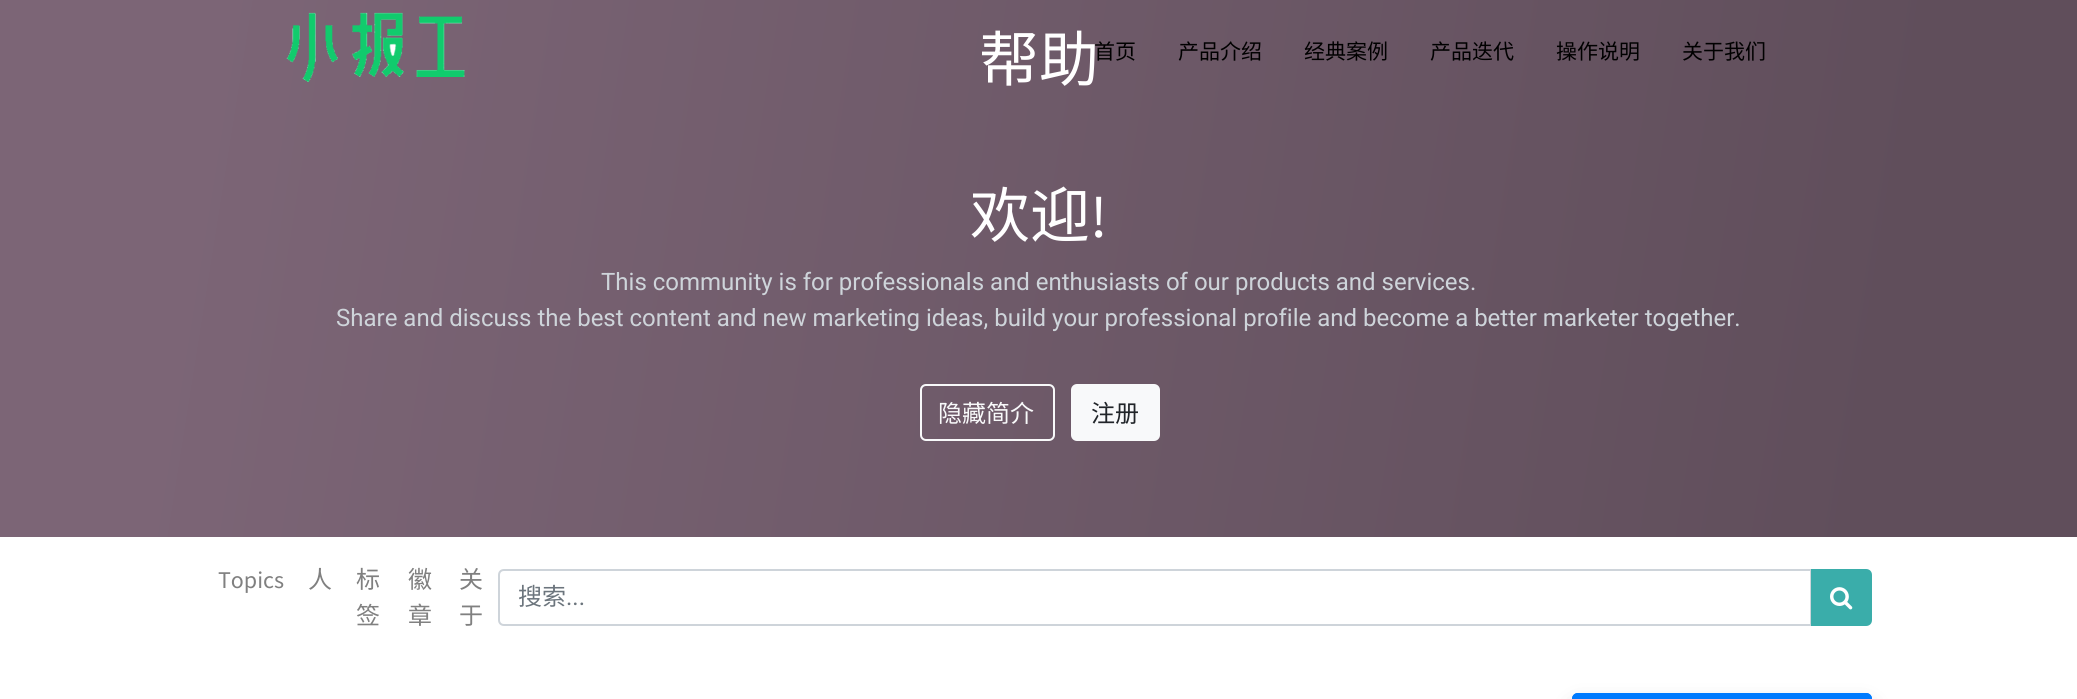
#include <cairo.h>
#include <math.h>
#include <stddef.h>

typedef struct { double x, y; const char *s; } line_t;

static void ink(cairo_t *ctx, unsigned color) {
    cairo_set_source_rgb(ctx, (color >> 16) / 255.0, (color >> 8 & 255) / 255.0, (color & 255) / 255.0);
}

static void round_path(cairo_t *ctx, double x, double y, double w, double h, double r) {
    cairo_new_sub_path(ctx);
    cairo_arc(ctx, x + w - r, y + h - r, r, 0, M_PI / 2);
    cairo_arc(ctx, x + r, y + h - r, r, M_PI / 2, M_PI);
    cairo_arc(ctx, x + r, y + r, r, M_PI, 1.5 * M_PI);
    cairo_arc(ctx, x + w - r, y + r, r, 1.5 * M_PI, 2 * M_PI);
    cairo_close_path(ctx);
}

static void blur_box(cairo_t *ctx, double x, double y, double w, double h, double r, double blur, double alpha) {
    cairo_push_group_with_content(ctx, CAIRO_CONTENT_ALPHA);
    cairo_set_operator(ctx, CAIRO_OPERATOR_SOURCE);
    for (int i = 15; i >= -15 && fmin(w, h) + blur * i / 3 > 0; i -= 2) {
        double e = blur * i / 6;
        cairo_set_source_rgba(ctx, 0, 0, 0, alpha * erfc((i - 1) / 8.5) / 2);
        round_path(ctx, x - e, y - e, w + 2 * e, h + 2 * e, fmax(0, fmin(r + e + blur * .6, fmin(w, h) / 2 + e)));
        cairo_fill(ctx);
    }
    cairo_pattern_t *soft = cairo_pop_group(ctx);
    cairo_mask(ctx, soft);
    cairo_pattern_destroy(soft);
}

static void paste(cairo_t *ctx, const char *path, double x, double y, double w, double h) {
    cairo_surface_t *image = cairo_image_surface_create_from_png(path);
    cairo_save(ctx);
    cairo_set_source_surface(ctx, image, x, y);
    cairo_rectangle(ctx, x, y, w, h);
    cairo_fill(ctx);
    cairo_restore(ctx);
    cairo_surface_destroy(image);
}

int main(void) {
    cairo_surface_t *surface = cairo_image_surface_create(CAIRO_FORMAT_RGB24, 2077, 699);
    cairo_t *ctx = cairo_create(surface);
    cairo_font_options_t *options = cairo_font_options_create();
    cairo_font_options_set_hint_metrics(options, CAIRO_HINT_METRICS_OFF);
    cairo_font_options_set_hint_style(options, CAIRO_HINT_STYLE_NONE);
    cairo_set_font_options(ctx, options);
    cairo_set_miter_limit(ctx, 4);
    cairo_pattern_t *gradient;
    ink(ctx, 0xFFFFFF);
    cairo_paint(ctx);
    gradient = cairo_pattern_create_linear(-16, 101, 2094, 436);
    cairo_pattern_add_color_stop_rgba(gradient, 0.1, 0.486, 0.396, 0.463, 1);
    cairo_pattern_add_color_stop_rgba(gradient, 0.9, 0.376, 0.306, 0.357, 1);
    cairo_set_source(ctx, gradient);
    cairo_pattern_destroy(gradient);
    cairo_rectangle(ctx, 0, 0, 2077, 537);
    cairo_fill(ctx);
    cairo_select_font_face(ctx, "Noto Sans CJK SC", CAIRO_FONT_SLANT_NORMAL, CAIRO_FONT_WEIGHT_NORMAL);
    cairo_set_font_size(ctx, 60);
    ink(ctx, 0xFFFFFF);
    cairo_move_to(ctx, 979, 81);
    cairo_show_text(ctx, "帮助");
    cairo_move_to(ctx, 970, 237);
    cairo_show_text(ctx, "欢迎");
    cairo_select_font_face(ctx, "Source Sans Pro", CAIRO_FONT_SLANT_NORMAL, CAIRO_FONT_WEIGHT_NORMAL);
    cairo_move_to(ctx, 1090, 237);
    cairo_show_text(ctx, "!");
    cairo_select_font_face(ctx, "Roboto", CAIRO_FONT_SLANT_NORMAL, CAIRO_FONT_WEIGHT_NORMAL);
    cairo_set_font_size(ctx, 24);
    ink(ctx, 0xCED4DA);
    cairo_move_to(ctx, 601, 290);
    cairo_show_text(ctx, "This community is for professionals and enthusiasts of our products and services.");
    cairo_move_to(ctx, 336, 326);
    cairo_show_text(ctx, "Share and discuss the best content and new marketing ideas, build your professional profile and become a better marketer together.");
    round_path(ctx, 921, 385, 133, 55, 5);
    ink(ctx, 0xF8F9FA);
    cairo_stroke(ctx);
    cairo_select_font_face(ctx, "Noto Sans CJK SC", CAIRO_FONT_SLANT_NORMAL, CAIRO_FONT_WEIGHT_NORMAL);
    cairo_move_to(ctx, 938, 422);
    cairo_show_text(ctx, "隐藏简介");
    round_path(ctx, 1072, 385, 87, 55, 5);
    cairo_fill_preserve(ctx);
    cairo_stroke(ctx);
    ink(ctx, 0x212529);
    cairo_move_to(ctx, 1091, 422);
    cairo_show_text(ctx, "注册");
    cairo_select_font_face(ctx, "Source Sans Pro", CAIRO_FONT_SLANT_NORMAL, CAIRO_FONT_WEIGHT_NORMAL);
    ink(ctx, 0x808080);
    cairo_move_to(ctx, 218, 588);
    cairo_show_text(ctx, "Topics");
    cairo_select_font_face(ctx, "Noto Sans CJK SC", CAIRO_FONT_SLANT_NORMAL, CAIRO_FONT_WEIGHT_NORMAL);
    {
        static const line_t items[] = {
            {308, 588, "人"},
            {356, 588, "标"},
            {356, 624, "签"},
            {408, 588, "徽"},
            {408, 624, "章"},
            {459, 588, "关"},
            {459, 624, "于"},
        };
        for (size_t i = 0; i < sizeof items / sizeof *items; i++) {
            cairo_move_to(ctx, items[i].x, items[i].y);
            cairo_show_text(ctx, items[i].s);
        }
    }
    cairo_new_path(ctx);
    cairo_move_to(ctx, 504, 570);
    cairo_line_to(ctx, 1811, 570);
    cairo_line_to(ctx, 1811, 625);
    cairo_line_to(ctx, 504, 625);
    cairo_curve_to(ctx, 501, 625, 499, 623, 499, 620);
    cairo_line_to(ctx, 499, 575);
    cairo_curve_to(ctx, 499, 572, 501, 570, 504, 570);
    cairo_close_path(ctx);
    ink(ctx, 0xCED4DA);
    cairo_stroke(ctx);
    ink(ctx, 0x6C757D);
    cairo_move_to(ctx, 518, 605);
    cairo_show_text(ctx, "搜索");
    cairo_select_font_face(ctx, "Roboto", CAIRO_FONT_SLANT_NORMAL, CAIRO_FONT_WEIGHT_NORMAL);
    cairo_move_to(ctx, 566, 605);
    cairo_show_text(ctx, "...");
    ink(ctx, 0x3AADAA);
    cairo_new_path(ctx);
    cairo_move_to(ctx, 1812, 570);
    cairo_line_to(ctx, 1866, 570);
    cairo_curve_to(ctx, 1869, 570, 1871, 572, 1871, 575);
    cairo_line_to(ctx, 1871, 620);
    cairo_curve_to(ctx, 1871, 623, 1869, 625, 1866, 625);
    cairo_line_to(ctx, 1812, 625);
    cairo_close_path(ctx);
    cairo_fill_preserve(ctx);
    cairo_stroke(ctx);
    paste(ctx, "media/1.png", 1830, 587, 23, 23);
    ink(ctx, 0x000000);
    blur_box(ctx, 1572, 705, 300, 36, 6, 12, 0.15);
    ink(ctx, 0x007BFF);
    cairo_new_path(ctx);
    cairo_move_to(ctx, 1578, 693);
    cairo_line_to(ctx, 1866, 693);
    cairo_curve_to(ctx, 1869.5, 693, 1872, 695.5, 1872, 699);
    cairo_line_to(ctx, 1572, 699);
    cairo_curve_to(ctx, 1572, 695.5, 1574.5, 693, 1578, 693);
    cairo_close_path(ctx);
    cairo_fill(ctx);
    round_path(ctx, 1573, 694, 298, 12, 5);
    cairo_stroke(ctx);
    paste(ctx, "media/2.png", 286, 12, 179, 70);
    cairo_select_font_face(ctx, "Noto Sans CJK SC", CAIRO_FONT_SLANT_NORMAL, CAIRO_FONT_WEIGHT_NORMAL);
    cairo_set_font_size(ctx, 21);
    ink(ctx, 0x000000);
    {
        static const line_t items[] = {
            {1094, 59, "首页"},
            {1178, 59, "产品介绍"},
            {1304, 59, "经典案例"},
            {1430, 59, "产品迭代"},
            {1556, 59, "操作说明"},
            {1682, 59, "关于我们"},
        };
        for (size_t i = 0; i < sizeof items / sizeof *items; i++) {
            cairo_move_to(ctx, items[i].x, items[i].y);
            cairo_show_text(ctx, items[i].s);
        }
    }
    cairo_surface_write_to_png(surface, "image.png");
    cairo_font_options_destroy(options);
    cairo_destroy(ctx);
    cairo_surface_destroy(surface);
    return 0;
}
